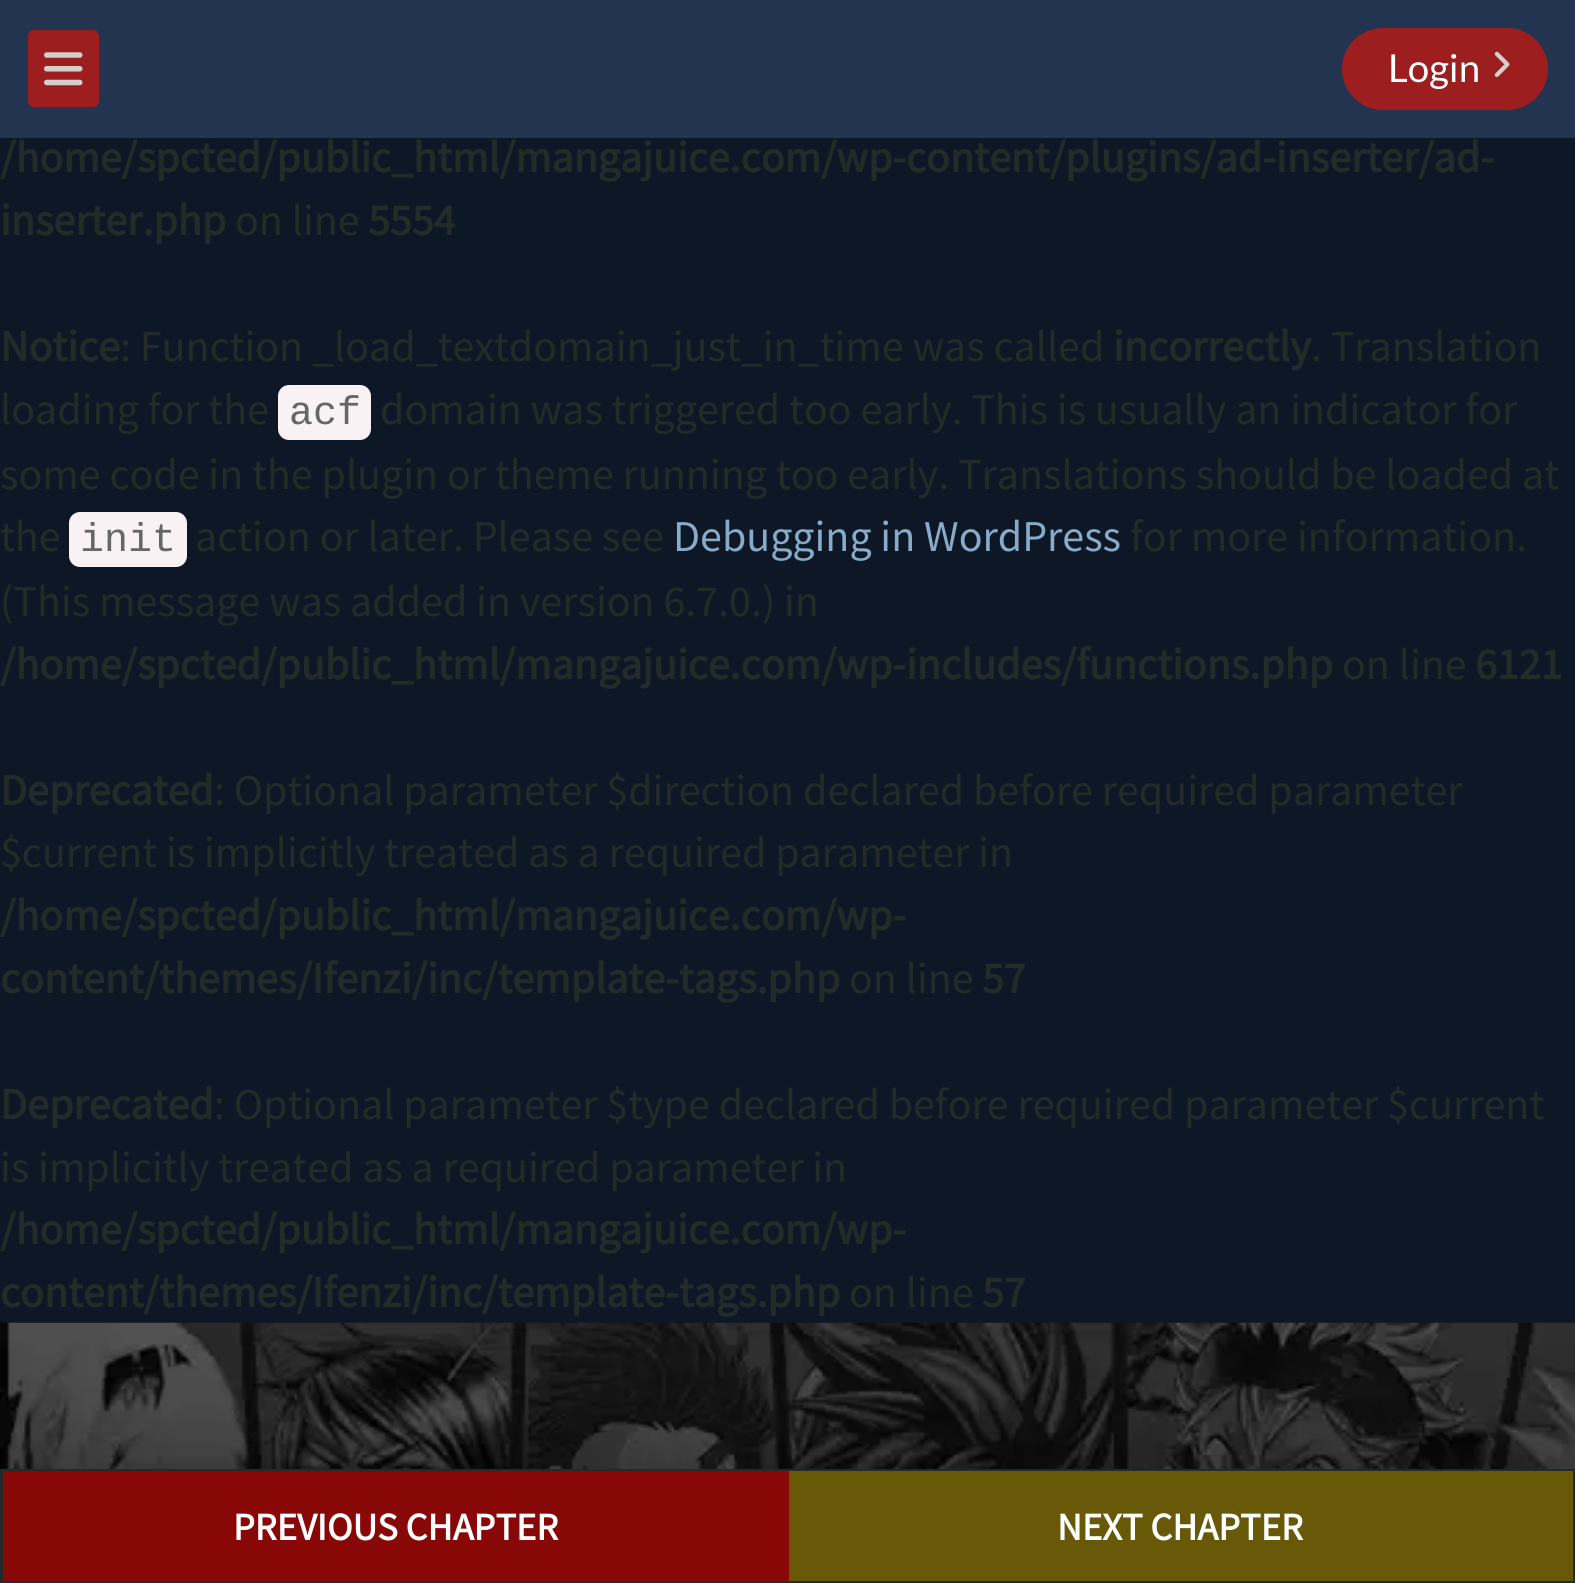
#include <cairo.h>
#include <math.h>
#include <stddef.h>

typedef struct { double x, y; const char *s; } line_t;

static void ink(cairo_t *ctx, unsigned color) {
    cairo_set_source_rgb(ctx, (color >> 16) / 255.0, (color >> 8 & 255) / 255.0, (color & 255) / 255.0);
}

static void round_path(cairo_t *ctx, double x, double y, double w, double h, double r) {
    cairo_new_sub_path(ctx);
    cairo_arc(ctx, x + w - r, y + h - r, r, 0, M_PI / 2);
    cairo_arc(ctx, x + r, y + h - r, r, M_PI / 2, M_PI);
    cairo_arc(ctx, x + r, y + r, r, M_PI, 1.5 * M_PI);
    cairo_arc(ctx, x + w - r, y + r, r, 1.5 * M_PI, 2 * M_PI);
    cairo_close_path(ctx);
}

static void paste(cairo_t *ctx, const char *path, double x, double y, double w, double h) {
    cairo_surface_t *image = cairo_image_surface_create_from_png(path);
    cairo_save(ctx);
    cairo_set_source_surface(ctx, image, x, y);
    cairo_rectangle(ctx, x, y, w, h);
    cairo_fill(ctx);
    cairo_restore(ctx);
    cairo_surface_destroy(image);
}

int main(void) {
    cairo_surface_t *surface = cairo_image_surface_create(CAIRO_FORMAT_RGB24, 1575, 1583);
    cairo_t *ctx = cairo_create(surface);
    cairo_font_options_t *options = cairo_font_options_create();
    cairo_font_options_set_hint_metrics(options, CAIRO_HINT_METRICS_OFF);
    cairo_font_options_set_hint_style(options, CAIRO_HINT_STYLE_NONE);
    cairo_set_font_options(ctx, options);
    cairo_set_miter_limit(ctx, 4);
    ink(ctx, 0x0E1726);
    cairo_paint(ctx);
    ink(ctx, 0x223450);
    cairo_rectangle(ctx, 0, 0, 1575, 138);
    cairo_fill(ctx);
    ink(ctx, 0x9D1E1E);
    round_path(ctx, 29.5, 31.5, 68, 74, 4.5);
    cairo_fill_preserve(ctx);
    cairo_set_line_width(ctx, 3);
    cairo_stroke(ctx);
    paste(ctx, "media/1.png", 44, 52, 39, 34);
    round_path(ctx, 1343.5, 29.5, 203, 79, 39.5);
    cairo_fill_preserve(ctx);
    cairo_stroke(ctx);
    cairo_select_font_face(ctx, "Lato", CAIRO_FONT_SLANT_NORMAL, CAIRO_FONT_WEIGHT_NORMAL);
    cairo_set_font_size(ctx, 38.5);
    ink(ctx, 0xFFFFFF);
    cairo_move_to(ctx, 1388, 82);
    cairo_show_text(ctx, "Login");
    paste(ctx, "media/2.png", 1494, 51, 16, 26);
    paste(ctx, "media/3.png", 0, 1322, 1575, 147);
    cairo_rectangle(ctx, 1.5, 1470.5, 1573, 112);
    ink(ctx, 0x222B27);
    cairo_stroke(ctx);
    ink(ctx, 0x880707);
    cairo_rectangle(ctx, 3, 1471, 786, 110);
    cairo_fill(ctx);
    cairo_select_font_face(ctx, "Source Sans Pro", CAIRO_FONT_SLANT_NORMAL, CAIRO_FONT_WEIGHT_BOLD);
    ink(ctx, 0xFFFFFF);
    cairo_move_to(ctx, 233, 1540);
    cairo_show_text(ctx, "PREVIOUS CHAPTER");
    ink(ctx, 0x685909);
    cairo_rectangle(ctx, 789, 1471, 784, 110);
    cairo_fill(ctx);
    ink(ctx, 0xFFFFFF);
    cairo_move_to(ctx, 1057, 1540);
    cairo_show_text(ctx, "NEXT CHAPTER");
    cairo_set_font_size(ctx, 44);
    ink(ctx, 0x222B27);
    cairo_move_to(ctx, 0, 172);
    cairo_show_text(ctx, "/home/spcted/public_html/mangajuice.com/wp-content/plugins/ad-inserter/ad-");
    cairo_move_to(ctx, 0, 235);
    cairo_show_text(ctx, "inserter.php");
    cairo_select_font_face(ctx, "Source Sans Pro", CAIRO_FONT_SLANT_NORMAL, CAIRO_FONT_WEIGHT_NORMAL);
    cairo_move_to(ctx, 235, 235);
    cairo_show_text(ctx, "on line");
    cairo_select_font_face(ctx, "Source Sans Pro", CAIRO_FONT_SLANT_NORMAL, CAIRO_FONT_WEIGHT_BOLD);
    cairo_move_to(ctx, 368, 235);
    cairo_show_text(ctx, "5554");
    cairo_move_to(ctx, 0, 361);
    cairo_show_text(ctx, "Notice");
    cairo_select_font_face(ctx, "Source Sans Pro", CAIRO_FONT_SLANT_NORMAL, CAIRO_FONT_WEIGHT_NORMAL);
    cairo_move_to(ctx, 120, 361);
    cairo_show_text(ctx, ": Function _load_textdomain_just_in_time was called");
    cairo_select_font_face(ctx, "Source Sans Pro", CAIRO_FONT_SLANT_NORMAL, CAIRO_FONT_WEIGHT_BOLD);
    cairo_move_to(ctx, 1113, 361);
    cairo_show_text(ctx, "incorrectly");
    cairo_select_font_face(ctx, "Source Sans Pro", CAIRO_FONT_SLANT_NORMAL, CAIRO_FONT_WEIGHT_NORMAL);
    cairo_move_to(ctx, 1311, 361);
    cairo_show_text(ctx, ". Translation");
    cairo_move_to(ctx, 0, 424);
    cairo_show_text(ctx, "loading for the");
    ink(ctx, 0xF9F2F4);
    round_path(ctx, 278, 385, 93, 55, 11);
    cairo_fill(ctx);
    cairo_select_font_face(ctx, "Liberation Mono", CAIRO_FONT_SLANT_NORMAL, CAIRO_FONT_WEIGHT_NORMAL);
    cairo_set_font_size(ctx, 40);
    ink(ctx, 0x666666);
    cairo_move_to(ctx, 289, 424);
    cairo_show_text(ctx, "acf");
    cairo_select_font_face(ctx, "Source Sans Pro", CAIRO_FONT_SLANT_NORMAL, CAIRO_FONT_WEIGHT_NORMAL);
    cairo_set_font_size(ctx, 44);
    ink(ctx, 0x222B27);
    {
        static const line_t items[] = {
            {380, 424, "domain was triggered too early. This is usually an indicator for"},
            {0, 489, "some code in the plugin or theme running too early. Translations should be loaded at"},
            {0, 551, "the"},
        };
        for (size_t i = 0; i < sizeof items / sizeof *items; i++) {
            cairo_move_to(ctx, items[i].x, items[i].y);
            cairo_show_text(ctx, items[i].s);
        }
    }
    ink(ctx, 0xF9F2F4);
    round_path(ctx, 69, 512, 118, 55, 11);
    cairo_fill(ctx);
    cairo_select_font_face(ctx, "Liberation Mono", CAIRO_FONT_SLANT_NORMAL, CAIRO_FONT_WEIGHT_NORMAL);
    cairo_set_font_size(ctx, 40);
    ink(ctx, 0x666666);
    cairo_move_to(ctx, 80, 551);
    cairo_show_text(ctx, "init");
    cairo_select_font_face(ctx, "Source Sans Pro", CAIRO_FONT_SLANT_NORMAL, CAIRO_FONT_WEIGHT_NORMAL);
    cairo_set_font_size(ctx, 44);
    ink(ctx, 0x222B27);
    cairo_move_to(ctx, 195, 551);
    cairo_show_text(ctx, "action or later. Please see");
    ink(ctx, 0x87ABC9);
    cairo_move_to(ctx, 673, 551);
    cairo_show_text(ctx, "Debugging in WordPress");
    ink(ctx, 0x222B27);
    cairo_move_to(ctx, 1130, 551);
    cairo_show_text(ctx, "for more information.");
    cairo_move_to(ctx, 0, 616);
    cairo_show_text(ctx, "(This message was added in version 6.7.0.) in");
    cairo_select_font_face(ctx, "Source Sans Pro", CAIRO_FONT_SLANT_NORMAL, CAIRO_FONT_WEIGHT_BOLD);
    cairo_move_to(ctx, 0, 679);
    cairo_show_text(ctx, "/home/spcted/public_html/mangajuice.com/wp-includes/functions.php");
    cairo_select_font_face(ctx, "Source Sans Pro", CAIRO_FONT_SLANT_NORMAL, CAIRO_FONT_WEIGHT_NORMAL);
    cairo_move_to(ctx, 1342, 679);
    cairo_show_text(ctx, "on line");
    cairo_select_font_face(ctx, "Source Sans Pro", CAIRO_FONT_SLANT_NORMAL, CAIRO_FONT_WEIGHT_BOLD);
    cairo_move_to(ctx, 1475, 679);
    cairo_show_text(ctx, "6121");
    cairo_move_to(ctx, 0, 805);
    cairo_show_text(ctx, "Deprecated");
    cairo_select_font_face(ctx, "Source Sans Pro", CAIRO_FONT_SLANT_NORMAL, CAIRO_FONT_WEIGHT_NORMAL);
    cairo_move_to(ctx, 214, 805);
    cairo_show_text(ctx, ": Optional parameter $direction declared before required parameter");
    cairo_move_to(ctx, 0, 867);
    cairo_show_text(ctx, "$current is implicitly treated as a required parameter in");
    cairo_select_font_face(ctx, "Source Sans Pro", CAIRO_FONT_SLANT_NORMAL, CAIRO_FONT_WEIGHT_BOLD);
    cairo_move_to(ctx, 0, 930);
    cairo_show_text(ctx, "/home/spcted/public_html/mangajuice.com/wp-");
    cairo_move_to(ctx, 0, 993);
    cairo_show_text(ctx, "content/themes/Ifenzi/inc/template-tags.php");
    cairo_select_font_face(ctx, "Source Sans Pro", CAIRO_FONT_SLANT_NORMAL, CAIRO_FONT_WEIGHT_NORMAL);
    cairo_move_to(ctx, 849, 993);
    cairo_show_text(ctx, "on line");
    cairo_select_font_face(ctx, "Source Sans Pro", CAIRO_FONT_SLANT_NORMAL, CAIRO_FONT_WEIGHT_BOLD);
    cairo_move_to(ctx, 982, 993);
    cairo_show_text(ctx, "57");
    cairo_move_to(ctx, 0, 1119);
    cairo_show_text(ctx, "Deprecated");
    cairo_select_font_face(ctx, "Source Sans Pro", CAIRO_FONT_SLANT_NORMAL, CAIRO_FONT_WEIGHT_NORMAL);
    cairo_move_to(ctx, 214, 1119);
    cairo_show_text(ctx, ": Optional parameter $type declared before required parameter $current");
    cairo_move_to(ctx, 0, 1182);
    cairo_show_text(ctx, "is implicitly treated as a required parameter in");
    cairo_select_font_face(ctx, "Source Sans Pro", CAIRO_FONT_SLANT_NORMAL, CAIRO_FONT_WEIGHT_BOLD);
    cairo_move_to(ctx, 0, 1244);
    cairo_show_text(ctx, "/home/spcted/public_html/mangajuice.com/wp-");
    cairo_move_to(ctx, 0, 1307);
    cairo_show_text(ctx, "content/themes/Ifenzi/inc/template-tags.php");
    cairo_select_font_face(ctx, "Source Sans Pro", CAIRO_FONT_SLANT_NORMAL, CAIRO_FONT_WEIGHT_NORMAL);
    cairo_move_to(ctx, 849, 1307);
    cairo_show_text(ctx, "on line");
    cairo_select_font_face(ctx, "Source Sans Pro", CAIRO_FONT_SLANT_NORMAL, CAIRO_FONT_WEIGHT_BOLD);
    cairo_move_to(ctx, 982, 1307);
    cairo_show_text(ctx, "57");
    cairo_surface_write_to_png(surface, "image.png");
    cairo_font_options_destroy(options);
    cairo_destroy(ctx);
    cairo_surface_destroy(surface);
    return 0;
}
